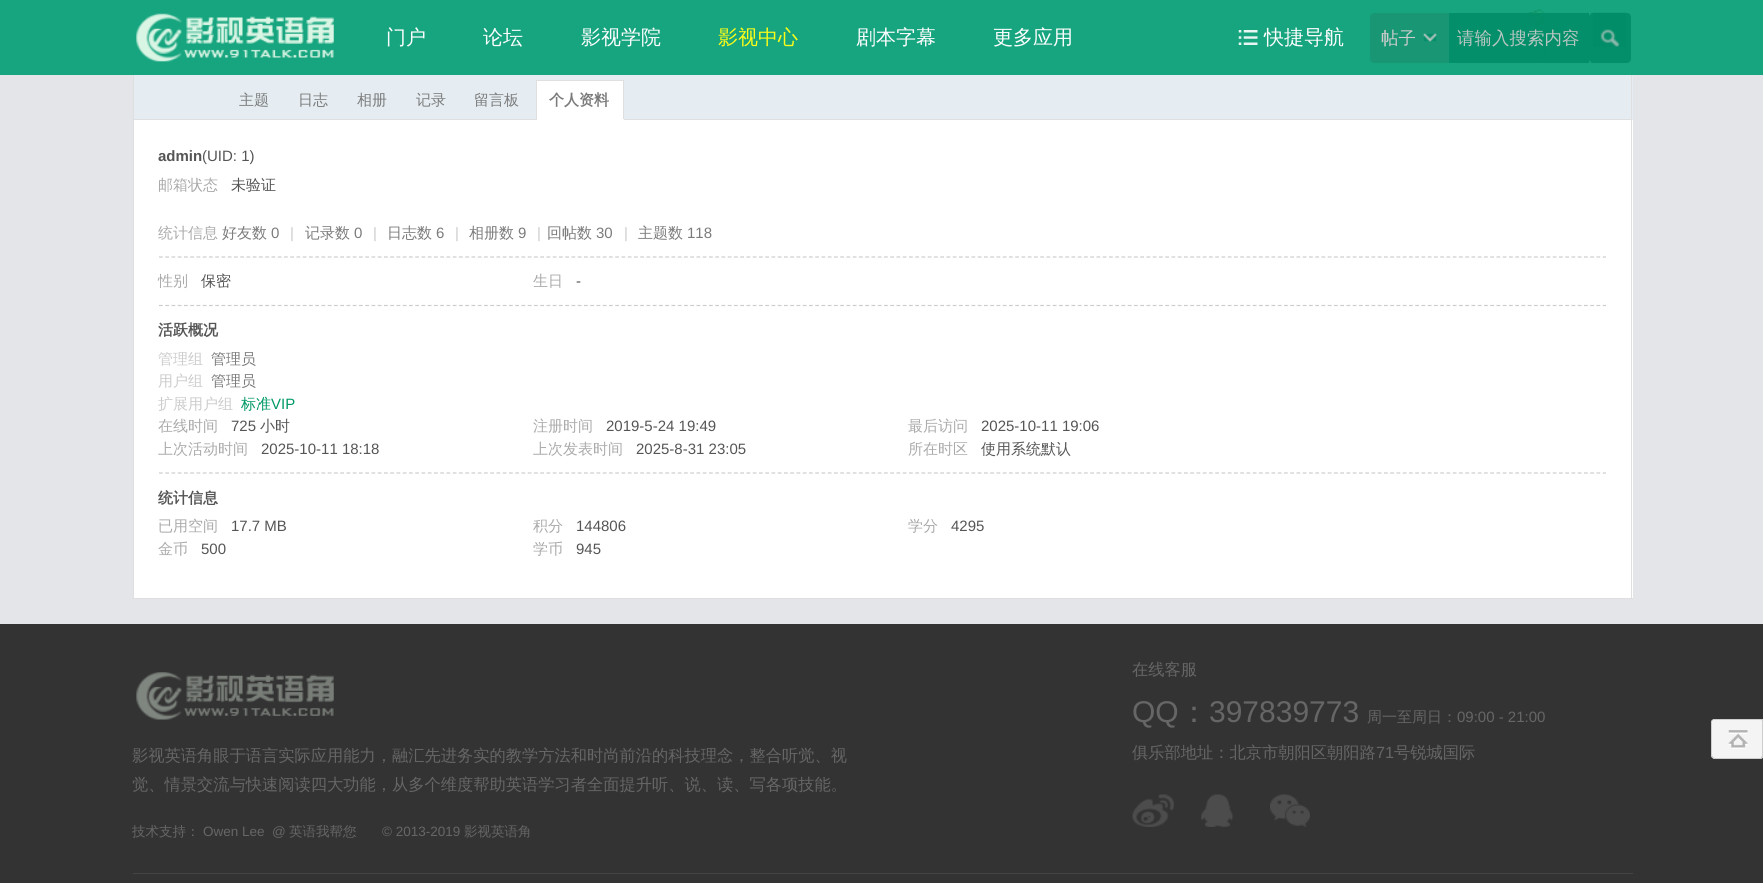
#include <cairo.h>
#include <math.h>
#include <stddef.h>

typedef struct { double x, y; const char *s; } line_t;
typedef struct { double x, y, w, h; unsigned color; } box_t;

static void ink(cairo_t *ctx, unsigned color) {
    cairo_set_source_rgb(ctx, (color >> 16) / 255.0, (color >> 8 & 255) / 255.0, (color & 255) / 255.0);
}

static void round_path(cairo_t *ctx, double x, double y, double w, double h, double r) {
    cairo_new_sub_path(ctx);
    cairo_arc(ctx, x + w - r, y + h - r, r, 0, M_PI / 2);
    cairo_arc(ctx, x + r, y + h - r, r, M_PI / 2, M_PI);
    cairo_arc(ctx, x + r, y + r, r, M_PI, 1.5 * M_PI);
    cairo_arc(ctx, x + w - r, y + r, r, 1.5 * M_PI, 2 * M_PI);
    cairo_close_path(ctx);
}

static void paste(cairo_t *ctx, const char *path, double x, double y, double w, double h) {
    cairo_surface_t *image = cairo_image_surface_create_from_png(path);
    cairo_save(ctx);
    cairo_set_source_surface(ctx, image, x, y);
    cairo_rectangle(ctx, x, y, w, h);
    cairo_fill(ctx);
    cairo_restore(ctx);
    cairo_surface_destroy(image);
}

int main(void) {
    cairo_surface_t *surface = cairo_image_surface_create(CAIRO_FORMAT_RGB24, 1763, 883);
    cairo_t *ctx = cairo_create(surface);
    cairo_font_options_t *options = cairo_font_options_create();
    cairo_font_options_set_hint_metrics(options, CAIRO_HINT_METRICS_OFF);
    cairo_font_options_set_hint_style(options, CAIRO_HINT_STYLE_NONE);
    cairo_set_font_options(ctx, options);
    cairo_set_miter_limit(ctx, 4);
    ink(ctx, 0xE3E5E8);
    cairo_paint(ctx);
    ink(ctx, 0x17A57F);
    cairo_rectangle(ctx, 0, 0, 1763, 75);
    cairo_fill(ctx);
    paste(ctx, "media/1.png", 136, 13, 198, 49);
    cairo_select_font_face(ctx, "WenQuanYi Zen Hei Medium", CAIRO_FONT_SLANT_NORMAL, CAIRO_FONT_WEIGHT_NORMAL);
    cairo_set_font_size(ctx, 20);
    ink(ctx, 0xFCFDFE);
    {
        static const line_t items[] = {
            {386, 44, "门户"},
            {483, 44, "论坛"},
            {581, 44, "影视学院"},
        };
        for (size_t i = 0; i < sizeof items / sizeof *items; i++) {
            cairo_move_to(ctx, items[i].x, items[i].y);
            cairo_show_text(ctx, items[i].s);
        }
    }
    ink(ctx, 0xFCFD18);
    cairo_move_to(ctx, 718, 44);
    cairo_show_text(ctx, "影视中心");
    ink(ctx, 0xFCFDFE);
    cairo_move_to(ctx, 856, 44);
    cairo_show_text(ctx, "剧本字幕");
    cairo_move_to(ctx, 993, 44);
    cairo_show_text(ctx, "更多应用");
    paste(ctx, "media/2.png", 1238, 30, 20, 15);
    cairo_move_to(ctx, 1264, 44);
    cairo_show_text(ctx, "快捷导航");
    ink(ctx, 0x199775);
    cairo_new_path(ctx);
    cairo_move_to(ctx, 1374, 13);
    cairo_line_to(ctx, 1449, 13);
    cairo_line_to(ctx, 1449, 63);
    cairo_line_to(ctx, 1374, 63);
    cairo_curve_to(ctx, 1372, 63, 1370, 61, 1370, 59);
    cairo_line_to(ctx, 1370, 17);
    cairo_curve_to(ctx, 1370, 15, 1372, 13, 1374, 13);
    cairo_close_path(ctx);
    cairo_fill(ctx);
    paste(ctx, "media/3.png", 1423, 33, 14, 9);
    cairo_set_font_size(ctx, 17.5);
    ink(ctx, 0xCCCCCC);
    cairo_move_to(ctx, 1381, 44);
    cairo_show_text(ctx, "帖子");
    paste(ctx, "media/5.png", 1528, 9, 19, 16);
    paste(ctx, "media/6.png", 1528, 44, 18, 15);
    cairo_set_source_rgba(ctx, 0.008, 0.553, 0.404, 0.9);
    cairo_rectangle(ctx, 1449, 13, 140, 50);
    cairo_fill(ctx);
    ink(ctx, 0xB8C6C2);
    cairo_move_to(ctx, 1457, 44);
    cairo_show_text(ctx, "请输入搜索内容");
    cairo_set_source_rgba(ctx, 0.008, 0.553, 0.404, 0.9);
    round_path(ctx, 1589, 13, 42, 50, 4);
    cairo_fill(ctx);
    paste(ctx, "media/4.png", 1593, 12, 33, 35);
    {
        static const box_t items[] = {
            {134, 75, 1499, 45, 0xE5EDF2},
            {1631, 75, 1, 45, 0xDFDFDF},
            {133, 75, 1, 45, 0xDFDFDF},
            {134, 119, 1497, 1, 0xDFDFDF},
        };
        for (size_t i = 0; i < sizeof items / sizeof *items; i++) {
            ink(ctx, items[i].color);
            cairo_rectangle(ctx, items[i].x, items[i].y, items[i].w, items[i].h);
            cairo_fill(ctx);
        }
    }
    cairo_set_font_size(ctx, 15);
    ink(ctx, 0x7B7B7B);
    {
        static const line_t items[] = {
            {239, 105, "主题"},
            {298, 105, "日志"},
            {357, 105, "相册"},
            {416, 105, "记录"},
            {474, 105, "留言板"},
        };
        for (size_t i = 0; i < sizeof items / sizeof *items; i++) {
            cairo_move_to(ctx, items[i].x, items[i].y);
            cairo_show_text(ctx, items[i].s);
        }
    }
    {
        static const box_t items[] = {
            {537, 81, 86, 38, 0xFFFFFF},
            {536, 80, 88, 1, 0xDFDFDF},
            {623, 80, 1, 40, 0xDFDFDF},
            {536, 119, 88, 1, 0xFFFFFF},
            {536, 80, 1, 40, 0xDFDFDF},
        };
        for (size_t i = 0; i < sizeof items / sizeof *items; i++) {
            ink(ctx, items[i].color);
            cairo_rectangle(ctx, items[i].x, items[i].y, items[i].w, items[i].h);
            cairo_fill(ctx);
        }
    }
    cairo_select_font_face(ctx, "WenQuanYi Zen Hei", CAIRO_FONT_SLANT_NORMAL, CAIRO_FONT_WEIGHT_BOLD);
    ink(ctx, 0x7B7B7B);
    cairo_move_to(ctx, 549, 105);
    cairo_show_text(ctx, "个人资料");
    {
        static const box_t items[] = {
            {134, 120, 1499, 478, 0xFFFFFF},
            {1631, 120, 1, 479, 0xDFDFDF},
            {133, 598, 1500, 1, 0xDFDFDF},
            {133, 120, 1, 479, 0xDFDFDF},
        };
        for (size_t i = 0; i < sizeof items / sizeof *items; i++) {
            ink(ctx, items[i].color);
            cairo_rectangle(ctx, items[i].x, items[i].y, items[i].w, items[i].h);
            cairo_fill(ctx);
        }
    }
    cairo_new_path(ctx);
    cairo_move_to(ctx, 159, 305.5);
    cairo_line_to(ctx, 1606, 305.5);
    ink(ctx, 0xCDCDCD);
    cairo_set_line_width(ctx, 1.2);
    cairo_set_dash(ctx, (double[]){3.75, 2.5}, 2, 0);
    cairo_stroke(ctx);
    cairo_select_font_face(ctx, "Liberation Sans", CAIRO_FONT_SLANT_NORMAL, CAIRO_FONT_WEIGHT_BOLD);
    ink(ctx, 0x555555);
    cairo_move_to(ctx, 158, 161);
    cairo_show_text(ctx, "admin");
    cairo_select_font_face(ctx, "Liberation Sans", CAIRO_FONT_SLANT_NORMAL, CAIRO_FONT_WEIGHT_NORMAL);
    cairo_move_to(ctx, 202, 161);
    cairo_show_text(ctx, "(UID: 1)");
    cairo_select_font_face(ctx, "WenQuanYi Zen Hei Medium", CAIRO_FONT_SLANT_NORMAL, CAIRO_FONT_WEIGHT_NORMAL);
    ink(ctx, 0xAAAAAA);
    cairo_move_to(ctx, 158, 190);
    cairo_show_text(ctx, "邮箱状态");
    ink(ctx, 0x555555);
    cairo_move_to(ctx, 231, 190);
    cairo_show_text(ctx, "未验证");
    cairo_new_path(ctx);
    cairo_move_to(ctx, 159, 257);
    cairo_line_to(ctx, 1606, 257);
    ink(ctx, 0xCDCDCD);
    cairo_stroke(ctx);
    ink(ctx, 0xAAAAAA);
    cairo_move_to(ctx, 158, 238);
    cairo_show_text(ctx, "统计信息");
    ink(ctx, 0x7B7B7B);
    cairo_move_to(ctx, 222, 238);
    cairo_show_text(ctx, "好友数");
    cairo_select_font_face(ctx, "Liberation Sans", CAIRO_FONT_SLANT_NORMAL, CAIRO_FONT_WEIGHT_NORMAL);
    cairo_move_to(ctx, 271, 238);
    cairo_show_text(ctx, "0");
    ink(ctx, 0xCCCCCC);
    cairo_move_to(ctx, 290, 238);
    cairo_show_text(ctx, "|");
    cairo_select_font_face(ctx, "WenQuanYi Zen Hei Medium", CAIRO_FONT_SLANT_NORMAL, CAIRO_FONT_WEIGHT_NORMAL);
    ink(ctx, 0x7B7B7B);
    cairo_move_to(ctx, 305, 238);
    cairo_show_text(ctx, "记录数");
    cairo_select_font_face(ctx, "Liberation Sans", CAIRO_FONT_SLANT_NORMAL, CAIRO_FONT_WEIGHT_NORMAL);
    cairo_move_to(ctx, 354, 238);
    cairo_show_text(ctx, "0");
    ink(ctx, 0xCCCCCC);
    cairo_move_to(ctx, 373, 238);
    cairo_show_text(ctx, "|");
    cairo_select_font_face(ctx, "WenQuanYi Zen Hei Medium", CAIRO_FONT_SLANT_NORMAL, CAIRO_FONT_WEIGHT_NORMAL);
    ink(ctx, 0x7B7B7B);
    cairo_move_to(ctx, 387, 238);
    cairo_show_text(ctx, "日志数");
    cairo_select_font_face(ctx, "Liberation Sans", CAIRO_FONT_SLANT_NORMAL, CAIRO_FONT_WEIGHT_NORMAL);
    cairo_move_to(ctx, 436, 238);
    cairo_show_text(ctx, "6");
    ink(ctx, 0xCCCCCC);
    cairo_move_to(ctx, 455, 238);
    cairo_show_text(ctx, "|");
    cairo_select_font_face(ctx, "WenQuanYi Zen Hei Medium", CAIRO_FONT_SLANT_NORMAL, CAIRO_FONT_WEIGHT_NORMAL);
    ink(ctx, 0x7B7B7B);
    cairo_move_to(ctx, 469, 238);
    cairo_show_text(ctx, "相册数");
    cairo_select_font_face(ctx, "Liberation Sans", CAIRO_FONT_SLANT_NORMAL, CAIRO_FONT_WEIGHT_NORMAL);
    cairo_move_to(ctx, 518, 238);
    cairo_show_text(ctx, "9");
    ink(ctx, 0xCCCCCC);
    cairo_move_to(ctx, 537, 238);
    cairo_show_text(ctx, "|");
    cairo_select_font_face(ctx, "WenQuanYi Zen Hei Medium", CAIRO_FONT_SLANT_NORMAL, CAIRO_FONT_WEIGHT_NORMAL);
    ink(ctx, 0x7B7B7B);
    cairo_move_to(ctx, 547, 238);
    cairo_show_text(ctx, "回帖数");
    cairo_select_font_face(ctx, "Liberation Sans", CAIRO_FONT_SLANT_NORMAL, CAIRO_FONT_WEIGHT_NORMAL);
    cairo_move_to(ctx, 596, 238);
    cairo_show_text(ctx, "30");
    ink(ctx, 0xCCCCCC);
    cairo_move_to(ctx, 624, 238);
    cairo_show_text(ctx, "|");
    cairo_select_font_face(ctx, "WenQuanYi Zen Hei Medium", CAIRO_FONT_SLANT_NORMAL, CAIRO_FONT_WEIGHT_NORMAL);
    ink(ctx, 0x7B7B7B);
    cairo_move_to(ctx, 638, 238);
    cairo_show_text(ctx, "主题数");
    cairo_select_font_face(ctx, "Liberation Sans", CAIRO_FONT_SLANT_NORMAL, CAIRO_FONT_WEIGHT_NORMAL);
    cairo_move_to(ctx, 687, 238);
    cairo_show_text(ctx, "118");
    cairo_select_font_face(ctx, "WenQuanYi Zen Hei Medium", CAIRO_FONT_SLANT_NORMAL, CAIRO_FONT_WEIGHT_NORMAL);
    ink(ctx, 0xAAAAAA);
    cairo_move_to(ctx, 158, 286);
    cairo_show_text(ctx, "性别");
    ink(ctx, 0x555555);
    cairo_move_to(ctx, 201, 286);
    cairo_show_text(ctx, "保密");
    ink(ctx, 0xAAAAAA);
    cairo_move_to(ctx, 533, 286);
    cairo_show_text(ctx, "生日");
    cairo_select_font_face(ctx, "Liberation Sans", CAIRO_FONT_SLANT_NORMAL, CAIRO_FONT_WEIGHT_NORMAL);
    ink(ctx, 0x555555);
    cairo_move_to(ctx, 576, 286);
    cairo_show_text(ctx, "-");
    cairo_new_path(ctx);
    cairo_move_to(ctx, 159, 473);
    cairo_line_to(ctx, 1606, 473);
    ink(ctx, 0xCDCDCD);
    cairo_stroke(ctx);
    cairo_select_font_face(ctx, "WenQuanYi Zen Hei", CAIRO_FONT_SLANT_NORMAL, CAIRO_FONT_WEIGHT_BOLD);
    ink(ctx, 0x555555);
    cairo_move_to(ctx, 158, 335);
    cairo_show_text(ctx, "活跃概况");
    cairo_select_font_face(ctx, "WenQuanYi Zen Hei Medium", CAIRO_FONT_SLANT_NORMAL, CAIRO_FONT_WEIGHT_NORMAL);
    ink(ctx, 0xCCCCCC);
    cairo_move_to(ctx, 158, 364);
    cairo_show_text(ctx, "管理组");
    ink(ctx, 0x7B7B7B);
    cairo_move_to(ctx, 211, 364);
    cairo_show_text(ctx, "管理员");
    ink(ctx, 0xCCCCCC);
    cairo_move_to(ctx, 158, 386);
    cairo_show_text(ctx, "用户组");
    ink(ctx, 0x7B7B7B);
    cairo_move_to(ctx, 211, 386);
    cairo_show_text(ctx, "管理员");
    ink(ctx, 0xCCCCCC);
    cairo_move_to(ctx, 158, 409);
    cairo_show_text(ctx, "扩展用户组");
    ink(ctx, 0x009966);
    cairo_move_to(ctx, 241, 409);
    cairo_show_text(ctx, "标准");
    cairo_select_font_face(ctx, "Liberation Sans", CAIRO_FONT_SLANT_NORMAL, CAIRO_FONT_WEIGHT_NORMAL);
    cairo_move_to(ctx, 271, 409);
    cairo_show_text(ctx, "VIP");
    cairo_select_font_face(ctx, "WenQuanYi Zen Hei Medium", CAIRO_FONT_SLANT_NORMAL, CAIRO_FONT_WEIGHT_NORMAL);
    ink(ctx, 0xAAAAAA);
    cairo_move_to(ctx, 158, 431);
    cairo_show_text(ctx, "在线时间");
    cairo_select_font_face(ctx, "Liberation Sans", CAIRO_FONT_SLANT_NORMAL, CAIRO_FONT_WEIGHT_NORMAL);
    ink(ctx, 0x555555);
    cairo_move_to(ctx, 231, 431);
    cairo_show_text(ctx, "725");
    cairo_select_font_face(ctx, "WenQuanYi Zen Hei Medium", CAIRO_FONT_SLANT_NORMAL, CAIRO_FONT_WEIGHT_NORMAL);
    cairo_move_to(ctx, 260, 431);
    cairo_show_text(ctx, "小时");
    ink(ctx, 0xAAAAAA);
    cairo_move_to(ctx, 533, 431);
    cairo_show_text(ctx, "注册时间");
    cairo_select_font_face(ctx, "Liberation Sans", CAIRO_FONT_SLANT_NORMAL, CAIRO_FONT_WEIGHT_NORMAL);
    ink(ctx, 0x555555);
    cairo_move_to(ctx, 606, 431);
    cairo_show_text(ctx, "2019-5-24 19:49");
    cairo_select_font_face(ctx, "WenQuanYi Zen Hei Medium", CAIRO_FONT_SLANT_NORMAL, CAIRO_FONT_WEIGHT_NORMAL);
    ink(ctx, 0xAAAAAA);
    cairo_move_to(ctx, 908, 431);
    cairo_show_text(ctx, "最后访问");
    cairo_select_font_face(ctx, "Liberation Sans", CAIRO_FONT_SLANT_NORMAL, CAIRO_FONT_WEIGHT_NORMAL);
    ink(ctx, 0x555555);
    cairo_move_to(ctx, 981, 431);
    cairo_show_text(ctx, "2025-10-11 19:06");
    cairo_select_font_face(ctx, "WenQuanYi Zen Hei Medium", CAIRO_FONT_SLANT_NORMAL, CAIRO_FONT_WEIGHT_NORMAL);
    ink(ctx, 0xAAAAAA);
    cairo_move_to(ctx, 158, 454);
    cairo_show_text(ctx, "上次活动时间");
    cairo_select_font_face(ctx, "Liberation Sans", CAIRO_FONT_SLANT_NORMAL, CAIRO_FONT_WEIGHT_NORMAL);
    ink(ctx, 0x555555);
    cairo_move_to(ctx, 261, 454);
    cairo_show_text(ctx, "2025-10-11 18:18");
    cairo_select_font_face(ctx, "WenQuanYi Zen Hei Medium", CAIRO_FONT_SLANT_NORMAL, CAIRO_FONT_WEIGHT_NORMAL);
    ink(ctx, 0xAAAAAA);
    cairo_move_to(ctx, 533, 454);
    cairo_show_text(ctx, "上次发表时间");
    cairo_select_font_face(ctx, "Liberation Sans", CAIRO_FONT_SLANT_NORMAL, CAIRO_FONT_WEIGHT_NORMAL);
    ink(ctx, 0x555555);
    cairo_move_to(ctx, 636, 454);
    cairo_show_text(ctx, "2025-8-31 23:05");
    cairo_select_font_face(ctx, "WenQuanYi Zen Hei Medium", CAIRO_FONT_SLANT_NORMAL, CAIRO_FONT_WEIGHT_NORMAL);
    ink(ctx, 0xAAAAAA);
    cairo_move_to(ctx, 908, 454);
    cairo_show_text(ctx, "所在时区");
    ink(ctx, 0x555555);
    cairo_move_to(ctx, 981, 454);
    cairo_show_text(ctx, "使用系统默认");
    cairo_select_font_face(ctx, "WenQuanYi Zen Hei", CAIRO_FONT_SLANT_NORMAL, CAIRO_FONT_WEIGHT_BOLD);
    cairo_move_to(ctx, 158, 503);
    cairo_show_text(ctx, "统计信息");
    cairo_select_font_face(ctx, "WenQuanYi Zen Hei Medium", CAIRO_FONT_SLANT_NORMAL, CAIRO_FONT_WEIGHT_NORMAL);
    ink(ctx, 0xAAAAAA);
    cairo_move_to(ctx, 158, 531);
    cairo_show_text(ctx, "已用空间");
    cairo_select_font_face(ctx, "Liberation Sans", CAIRO_FONT_SLANT_NORMAL, CAIRO_FONT_WEIGHT_NORMAL);
    ink(ctx, 0x555555);
    cairo_move_to(ctx, 231, 531);
    cairo_show_text(ctx, "17.7 MB");
    cairo_select_font_face(ctx, "WenQuanYi Zen Hei Medium", CAIRO_FONT_SLANT_NORMAL, CAIRO_FONT_WEIGHT_NORMAL);
    ink(ctx, 0xAAAAAA);
    cairo_move_to(ctx, 533, 531);
    cairo_show_text(ctx, "积分");
    cairo_select_font_face(ctx, "Liberation Sans", CAIRO_FONT_SLANT_NORMAL, CAIRO_FONT_WEIGHT_NORMAL);
    ink(ctx, 0x555555);
    cairo_move_to(ctx, 576, 531);
    cairo_show_text(ctx, "144806");
    cairo_select_font_face(ctx, "WenQuanYi Zen Hei Medium", CAIRO_FONT_SLANT_NORMAL, CAIRO_FONT_WEIGHT_NORMAL);
    ink(ctx, 0xAAAAAA);
    cairo_move_to(ctx, 908, 531);
    cairo_show_text(ctx, "学分");
    cairo_select_font_face(ctx, "Liberation Sans", CAIRO_FONT_SLANT_NORMAL, CAIRO_FONT_WEIGHT_NORMAL);
    ink(ctx, 0x555555);
    cairo_move_to(ctx, 951, 531);
    cairo_show_text(ctx, "4295");
    cairo_select_font_face(ctx, "WenQuanYi Zen Hei Medium", CAIRO_FONT_SLANT_NORMAL, CAIRO_FONT_WEIGHT_NORMAL);
    ink(ctx, 0xAAAAAA);
    cairo_move_to(ctx, 158, 554);
    cairo_show_text(ctx, "金币");
    cairo_select_font_face(ctx, "Liberation Sans", CAIRO_FONT_SLANT_NORMAL, CAIRO_FONT_WEIGHT_NORMAL);
    ink(ctx, 0x555555);
    cairo_move_to(ctx, 201, 554);
    cairo_show_text(ctx, "500");
    cairo_select_font_face(ctx, "WenQuanYi Zen Hei Medium", CAIRO_FONT_SLANT_NORMAL, CAIRO_FONT_WEIGHT_NORMAL);
    ink(ctx, 0xAAAAAA);
    cairo_move_to(ctx, 533, 554);
    cairo_show_text(ctx, "学币");
    cairo_select_font_face(ctx, "Liberation Sans", CAIRO_FONT_SLANT_NORMAL, CAIRO_FONT_WEIGHT_NORMAL);
    ink(ctx, 0x555555);
    cairo_move_to(ctx, 576, 554);
    cairo_show_text(ctx, "945");
    ink(ctx, 0x333333);
    cairo_rectangle(ctx, 0, 624, 1763, 259);
    cairo_fill(ctx);
    cairo_select_font_face(ctx, "WenQuanYi Zen Hei Medium", CAIRO_FONT_SLANT_NORMAL, CAIRO_FONT_WEIGHT_NORMAL);
    cairo_set_font_size(ctx, 16.25);
    ink(ctx, 0x666666);
    cairo_move_to(ctx, 1132, 675);
    cairo_show_text(ctx, "在线客服");
    cairo_select_font_face(ctx, "Liberation Sans", CAIRO_FONT_SLANT_NORMAL, CAIRO_FONT_WEIGHT_NORMAL);
    cairo_set_font_size(ctx, 30);
    cairo_move_to(ctx, 1132, 722);
    cairo_show_text(ctx, "QQ");
    cairo_select_font_face(ctx, "WenQuanYi Zen Hei Medium", CAIRO_FONT_SLANT_NORMAL, CAIRO_FONT_WEIGHT_NORMAL);
    cairo_move_to(ctx, 1179, 722);
    cairo_show_text(ctx, "：");
    cairo_select_font_face(ctx, "Liberation Sans", CAIRO_FONT_SLANT_NORMAL, CAIRO_FONT_WEIGHT_NORMAL);
    cairo_move_to(ctx, 1209, 722);
    cairo_show_text(ctx, "397839773");
    cairo_select_font_face(ctx, "WenQuanYi Zen Hei Medium", CAIRO_FONT_SLANT_NORMAL, CAIRO_FONT_WEIGHT_NORMAL);
    cairo_set_font_size(ctx, 15);
    cairo_move_to(ctx, 1367, 722);
    cairo_show_text(ctx, "周一至周日：");
    cairo_select_font_face(ctx, "Liberation Sans", CAIRO_FONT_SLANT_NORMAL, CAIRO_FONT_WEIGHT_NORMAL);
    cairo_move_to(ctx, 1457, 722);
    cairo_show_text(ctx, "09:00 - 21:00");
    cairo_select_font_face(ctx, "WenQuanYi Zen Hei Medium", CAIRO_FONT_SLANT_NORMAL, CAIRO_FONT_WEIGHT_NORMAL);
    cairo_set_font_size(ctx, 16.25);
    cairo_move_to(ctx, 1132, 758);
    cairo_show_text(ctx, "俱乐部地址：北京市朝阳区朝阳路");
    cairo_select_font_face(ctx, "Liberation Sans", CAIRO_FONT_SLANT_NORMAL, CAIRO_FONT_WEIGHT_NORMAL);
    cairo_move_to(ctx, 1376, 758);
    cairo_show_text(ctx, "71");
    cairo_select_font_face(ctx, "WenQuanYi Zen Hei Medium", CAIRO_FONT_SLANT_NORMAL, CAIRO_FONT_WEIGHT_NORMAL);
    cairo_move_to(ctx, 1394, 758);
    cairo_show_text(ctx, "号锐城国际");
    paste(ctx, "media/7.png", 1132, 794, 42, 33);
    paste(ctx, "media/8.png", 1201, 794, 32, 33);
    paste(ctx, "media/9.png", 1270, 794, 40, 33);
    paste(ctx, "media/10.png", 136, 672, 198, 48);
    cairo_move_to(ctx, 132, 761);
    cairo_show_text(ctx, "影视英语角眼于语言实际应用能力，融汇先进务实的教学方法和时尚前沿的科技理念，整合听觉、视");
    cairo_move_to(ctx, 132, 790);
    cairo_show_text(ctx, "觉、情景交流与快速阅读四大功能，从多个维度帮助英语学习者全面提升听、说、读、写各项技能。");
    cairo_set_font_size(ctx, 13.5);
    cairo_move_to(ctx, 132, 836);
    cairo_show_text(ctx, "技术支持：");
    cairo_select_font_face(ctx, "Liberation Sans", CAIRO_FONT_SLANT_NORMAL, CAIRO_FONT_WEIGHT_NORMAL);
    cairo_move_to(ctx, 203, 836);
    cairo_show_text(ctx, "Owen Lee");
    cairo_move_to(ctx, 272, 836);
    cairo_show_text(ctx, "@");
    cairo_select_font_face(ctx, "WenQuanYi Zen Hei Medium", CAIRO_FONT_SLANT_NORMAL, CAIRO_FONT_WEIGHT_NORMAL);
    cairo_move_to(ctx, 289, 836);
    cairo_show_text(ctx, "英语我帮您");
    cairo_select_font_face(ctx, "Liberation Sans", CAIRO_FONT_SLANT_NORMAL, CAIRO_FONT_WEIGHT_NORMAL);
    cairo_move_to(ctx, 382, 836);
    cairo_show_text(ctx, "© 2013-2019");
    cairo_select_font_face(ctx, "WenQuanYi Zen Hei Medium", CAIRO_FONT_SLANT_NORMAL, CAIRO_FONT_WEIGHT_NORMAL);
    cairo_move_to(ctx, 464, 836);
    cairo_show_text(ctx, "影视英语角");
    ink(ctx, 0x444444);
    cairo_rectangle(ctx, 133, 873, 1500, 1);
    cairo_fill(ctx);
    ink(ctx, 0xF4F4F4);
    round_path(ctx, 1711, 719, 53, 40, 4);
    cairo_fill(ctx);
    ink(ctx, 0xCDCDCD);
    cairo_set_fill_rule(ctx, CAIRO_FILL_RULE_EVEN_ODD);
    cairo_new_path(ctx);
    cairo_move_to(ctx, 1715, 719);
    cairo_line_to(ctx, 1760, 719);
    cairo_curve_to(ctx, 1762, 719, 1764, 720, 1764, 722);
    cairo_line_to(ctx, 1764, 755);
    cairo_curve_to(ctx, 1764, 757, 1762, 759, 1760, 759);
    cairo_line_to(ctx, 1715, 759);
    cairo_curve_to(ctx, 1713, 759, 1711, 757, 1711, 755);
    cairo_line_to(ctx, 1711, 722);
    cairo_curve_to(ctx, 1711, 720, 1713, 719, 1715, 719);
    cairo_close_path(ctx);
    cairo_move_to(ctx, 1715, 719);
    cairo_line_to(ctx, 1760, 719);
    cairo_curve_to(ctx, 1761, 719, 1762, 720, 1762, 722);
    cairo_line_to(ctx, 1762, 755);
    cairo_curve_to(ctx, 1762, 756, 1761, 758, 1760, 758);
    cairo_line_to(ctx, 1715, 758);
    cairo_curve_to(ctx, 1714, 758, 1712, 756, 1712, 755);
    cairo_line_to(ctx, 1712, 722);
    cairo_curve_to(ctx, 1712, 720, 1714, 719, 1715, 719);
    cairo_close_path(ctx);
    cairo_fill(ctx);
    paste(ctx, "media/11.png", 1728, 730, 20, 19);
    cairo_rectangle(ctx, 1713, 719, 50, 1);
    cairo_fill(ctx);
    cairo_surface_write_to_png(surface, "image.png");
    cairo_font_options_destroy(options);
    cairo_destroy(ctx);
    cairo_surface_destroy(surface);
    return 0;
}
